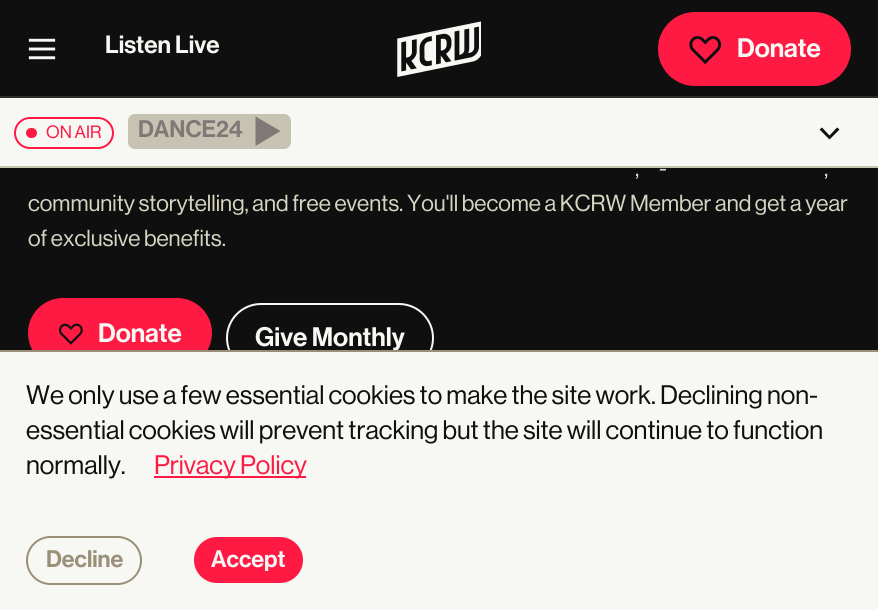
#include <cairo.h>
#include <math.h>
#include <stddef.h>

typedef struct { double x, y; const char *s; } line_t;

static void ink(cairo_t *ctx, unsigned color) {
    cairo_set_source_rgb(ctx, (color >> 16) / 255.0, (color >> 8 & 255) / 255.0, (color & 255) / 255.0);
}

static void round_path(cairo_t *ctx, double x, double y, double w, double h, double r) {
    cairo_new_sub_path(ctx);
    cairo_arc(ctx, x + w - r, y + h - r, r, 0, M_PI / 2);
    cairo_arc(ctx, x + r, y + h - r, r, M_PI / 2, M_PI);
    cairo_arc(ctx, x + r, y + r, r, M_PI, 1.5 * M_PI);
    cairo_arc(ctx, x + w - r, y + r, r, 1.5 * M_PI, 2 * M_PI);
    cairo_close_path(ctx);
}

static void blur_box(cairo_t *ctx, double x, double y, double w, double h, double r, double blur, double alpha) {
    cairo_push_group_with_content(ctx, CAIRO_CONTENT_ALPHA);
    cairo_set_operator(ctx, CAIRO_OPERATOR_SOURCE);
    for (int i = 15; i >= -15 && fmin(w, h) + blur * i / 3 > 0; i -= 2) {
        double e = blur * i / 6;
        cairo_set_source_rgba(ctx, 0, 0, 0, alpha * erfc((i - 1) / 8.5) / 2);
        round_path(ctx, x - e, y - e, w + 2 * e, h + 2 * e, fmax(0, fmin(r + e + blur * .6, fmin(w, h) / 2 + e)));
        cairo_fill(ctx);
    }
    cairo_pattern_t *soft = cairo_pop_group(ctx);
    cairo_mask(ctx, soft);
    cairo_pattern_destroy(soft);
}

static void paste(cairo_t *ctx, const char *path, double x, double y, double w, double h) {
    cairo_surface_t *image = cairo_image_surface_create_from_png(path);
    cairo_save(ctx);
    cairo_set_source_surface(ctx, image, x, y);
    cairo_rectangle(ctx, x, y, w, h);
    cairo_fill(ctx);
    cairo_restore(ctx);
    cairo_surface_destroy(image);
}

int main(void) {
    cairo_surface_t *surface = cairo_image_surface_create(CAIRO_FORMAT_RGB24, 878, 610);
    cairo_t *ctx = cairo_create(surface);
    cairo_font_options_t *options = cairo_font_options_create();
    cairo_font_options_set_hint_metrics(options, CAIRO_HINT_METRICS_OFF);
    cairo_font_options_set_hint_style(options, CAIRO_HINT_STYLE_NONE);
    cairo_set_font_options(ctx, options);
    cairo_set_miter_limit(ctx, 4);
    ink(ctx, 0x0F0F0F);
    cairo_paint(ctx);
    ink(ctx, 0x2B2B2A);
    cairo_rectangle(ctx, 0, 96, 878, 2);
    cairo_fill(ctx);
    paste(ctx, "media/1.png", 28, 38, 28, 22);
    cairo_select_font_face(ctx, "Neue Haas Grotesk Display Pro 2 Medium", CAIRO_FONT_SLANT_NORMAL, CAIRO_FONT_WEIGHT_NORMAL);
    cairo_set_font_size(ctx, 24.5);
    ink(ctx, 0xF7F7F3);
    cairo_move_to(ctx, 105, 53);
    cairo_show_text(ctx, "Listen Live");
    paste(ctx, "media/2.png", 397, 21, 84, 56);
    ink(ctx, 0xFF1A44);
    round_path(ctx, 659, 13, 191, 72, 36);
    cairo_fill_preserve(ctx);
    cairo_stroke(ctx);
    paste(ctx, "media/3.png", 689, 36, 33, 29);
    cairo_set_font_size(ctx, 26.25);
    ink(ctx, 0xF7F7F3);
    cairo_move_to(ctx, 737, 57);
    cairo_show_text(ctx, "Donate");
    cairo_rectangle(ctx, 0, 98, 878, 68);
    cairo_fill(ctx);
    ink(ctx, 0xC7C4AE);
    cairo_rectangle(ctx, 0, 166, 878, 2);
    cairo_fill(ctx);
    round_path(ctx, 15, 118, 98, 30, 15);
    ink(ctx, 0xFF1A44);
    cairo_stroke(ctx);
    round_path(ctx, 26, 128, 11, 10, 5);
    cairo_fill(ctx);
    cairo_select_font_face(ctx, "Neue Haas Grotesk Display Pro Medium", CAIRO_FONT_SLANT_NORMAL, CAIRO_FONT_WEIGHT_NORMAL);
    cairo_set_font_size(ctx, 17.5);
    cairo_move_to(ctx, 46, 138);
    cairo_show_text(ctx, "ON AIR");
    ink(ctx, 0xEFEFEF);
    round_path(ctx, 128, 114, 163, 35, 7);
    cairo_fill(ctx);
    cairo_set_source_rgba(ctx, 0.714, 0.694, 0.604, 0.7);
    round_path(ctx, 128, 114, 163, 35, 7);
    cairo_fill(ctx);
    cairo_select_font_face(ctx, "Neue Haas Grotesk Display Pro 2 Medium", CAIRO_FONT_SLANT_NORMAL, CAIRO_FONT_WEIGHT_NORMAL);
    cairo_set_font_size(ctx, 23.5);
    ink(ctx, 0x7E7976);
    cairo_move_to(ctx, 138, 137);
    cairo_show_text(ctx, "DANCE24");
    cairo_new_path(ctx);
    cairo_move_to(ctx, 255.5, 116.5);
    cairo_line_to(ctx, 255.5, 146);
    cairo_line_to(ctx, 280.5, 131);
    cairo_close_path(ctx);
    cairo_fill(ctx);
    ink(ctx, 0x100F0F);
    cairo_set_fill_rule(ctx, CAIRO_FILL_RULE_EVEN_ODD);
    cairo_new_path(ctx);
    cairo_move_to(ctx, 819.5, 129.5);
    cairo_line_to(ctx, 822, 127.5);
    cairo_line_to(ctx, 829.5, 135.5);
    cairo_line_to(ctx, 837, 127.5);
    cairo_line_to(ctx, 839.5, 129.5);
    cairo_line_to(ctx, 829.5, 139.5);
    cairo_close_path(ctx);
    cairo_fill(ctx);
    cairo_select_font_face(ctx, "Neue Haas Grotesk Display Pro Medium", CAIRO_FONT_SLANT_NORMAL, CAIRO_FONT_WEIGHT_NORMAL);
    cairo_set_font_size(ctx, 22.75);
    ink(ctx, 0xD6D5C2);
    {
        static const line_t items[] = {
            {659, 176, "-"},
            {635, 176, ","},
            {824, 176, ","},
            {28, 211, "community storytelling, and free events. You'll become a KCRW Member and get a year"},
            {28, 246, "of exclusive benefits."},
        };
        for (size_t i = 0; i < sizeof items / sizeof *items; i++) {
            cairo_move_to(ctx, items[i].x, items[i].y);
            cairo_show_text(ctx, items[i].s);
        }
    }
    ink(ctx, 0xFF1A44);
    round_path(ctx, 29, 299, 182, 68, 34);
    cairo_fill_preserve(ctx);
    cairo_stroke(ctx);
    paste(ctx, "media/4.png", 59, 323, 24, 22);
    cairo_select_font_face(ctx, "Neue Haas Grotesk Display Pro 2 Medium", CAIRO_FONT_SLANT_NORMAL, CAIRO_FONT_WEIGHT_NORMAL);
    cairo_set_font_size(ctx, 26.25);
    ink(ctx, 0xF7F7F3);
    cairo_move_to(ctx, 98, 342);
    cairo_show_text(ctx, "Donate");
    round_path(ctx, 227, 304, 206, 68, 34);
    cairo_stroke(ctx);
    cairo_move_to(ctx, 255, 346);
    cairo_show_text(ctx, "Give Monthly");
    ink(ctx, 0x670511);
    blur_box(ctx, 0, 354, 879, 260, 0, 3.5, 0.25);
    ink(ctx, 0xF7F7F3);
    cairo_rectangle(ctx, 0, 352, 878, 258);
    cairo_fill(ctx);
    ink(ctx, 0x9A9079);
    cairo_rectangle(ctx, 0, 350, 878, 2);
    cairo_fill(ctx);
    cairo_select_font_face(ctx, "Neue Haas Grotesk Display Pro Medium", CAIRO_FONT_SLANT_NORMAL, CAIRO_FONT_WEIGHT_NORMAL);
    ink(ctx, 0x0F0F0F);
    {
        static const line_t items[] = {
            {26, 404, "We only use a few essential cookies to make the site work. Declining non-"},
            {26, 439, "essential cookies will prevent tracking but the site will continue to function"},
            {26, 474, "normally."},
        };
        for (size_t i = 0; i < sizeof items / sizeof *items; i++) {
            cairo_move_to(ctx, items[i].x, items[i].y);
            cairo_show_text(ctx, items[i].s);
        }
    }
    ink(ctx, 0xFF1A44);
    cairo_rectangle(ctx, 154, 476, 152, 2);
    cairo_fill(ctx);
    cairo_move_to(ctx, 154, 474);
    cairo_show_text(ctx, "Privacy Policy");
    round_path(ctx, 27, 537, 114, 47, 23.5);
    ink(ctx, 0x9A9079);
    cairo_stroke(ctx);
    cairo_select_font_face(ctx, "Neue Haas Grotesk Display Pro 2 Medium", CAIRO_FONT_SLANT_NORMAL, CAIRO_FONT_WEIGHT_NORMAL);
    cairo_set_font_size(ctx, 23.5);
    cairo_move_to(ctx, 46, 567);
    cairo_show_text(ctx, "Decline");
    ink(ctx, 0xFF1A44);
    round_path(ctx, 194, 537, 109, 46, 23);
    cairo_fill(ctx);
    ink(ctx, 0xF7F7F3);
    cairo_move_to(ctx, 211, 567);
    cairo_show_text(ctx, "Accept");
    cairo_surface_write_to_png(surface, "image.png");
    cairo_font_options_destroy(options);
    cairo_destroy(ctx);
    cairo_surface_destroy(surface);
    return 0;
}
